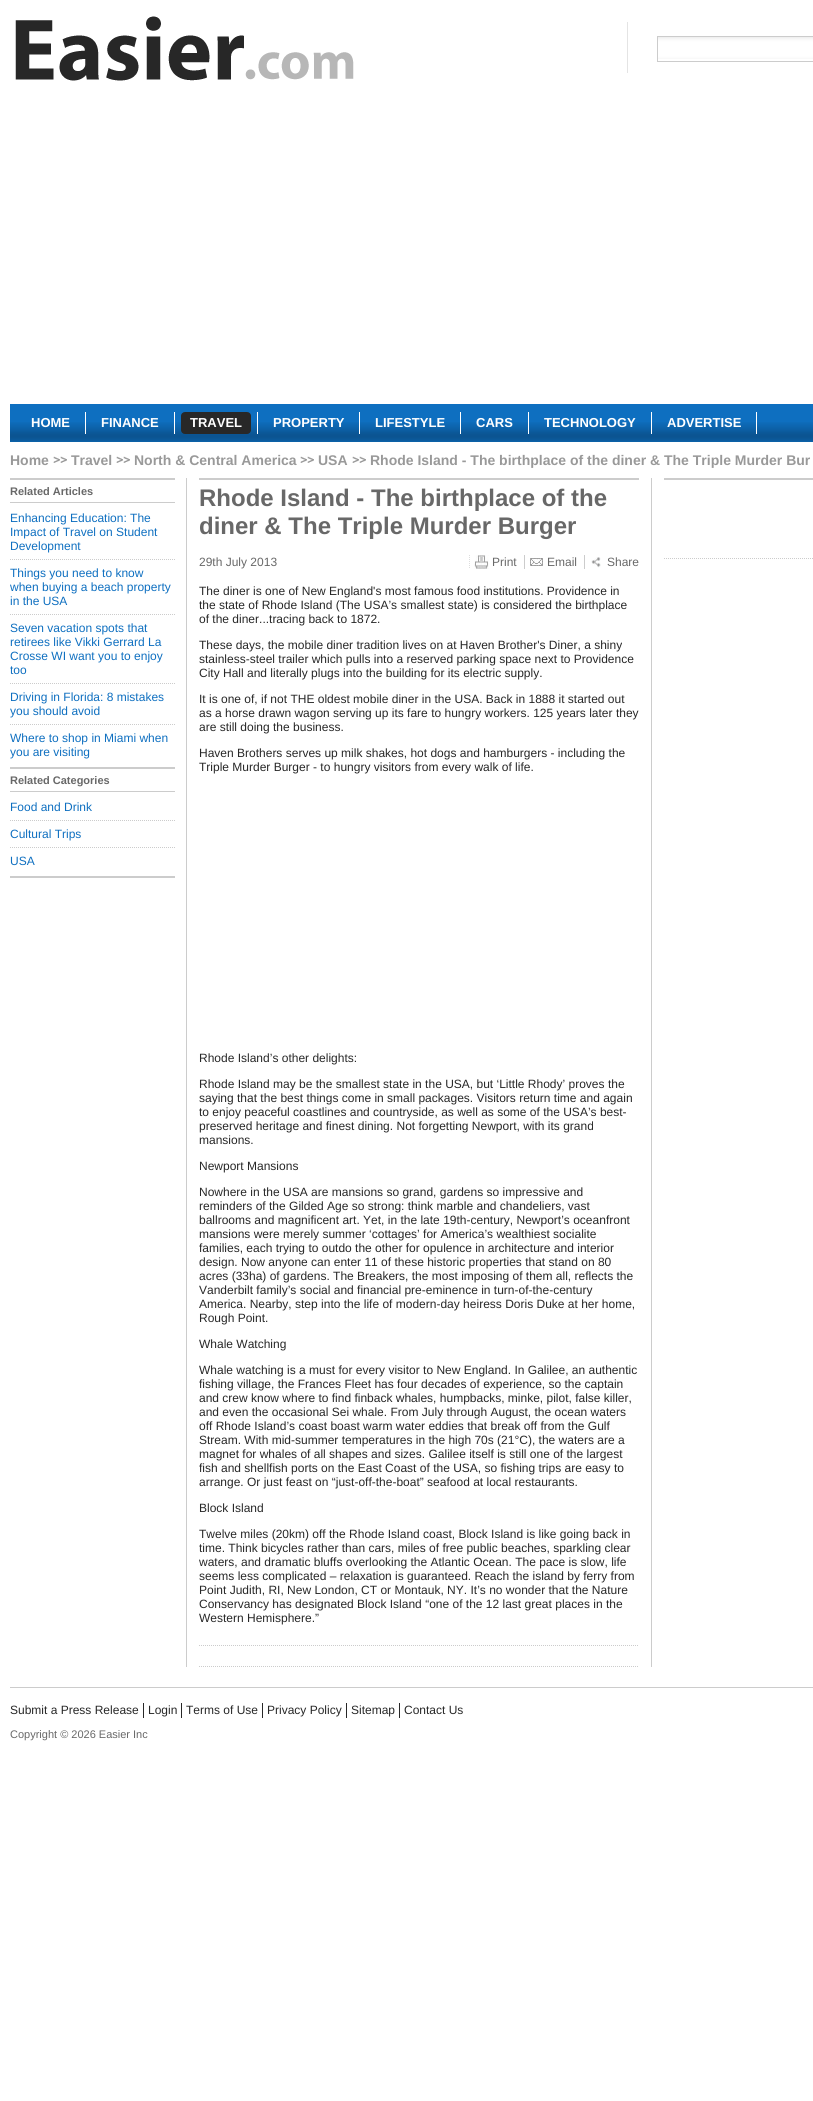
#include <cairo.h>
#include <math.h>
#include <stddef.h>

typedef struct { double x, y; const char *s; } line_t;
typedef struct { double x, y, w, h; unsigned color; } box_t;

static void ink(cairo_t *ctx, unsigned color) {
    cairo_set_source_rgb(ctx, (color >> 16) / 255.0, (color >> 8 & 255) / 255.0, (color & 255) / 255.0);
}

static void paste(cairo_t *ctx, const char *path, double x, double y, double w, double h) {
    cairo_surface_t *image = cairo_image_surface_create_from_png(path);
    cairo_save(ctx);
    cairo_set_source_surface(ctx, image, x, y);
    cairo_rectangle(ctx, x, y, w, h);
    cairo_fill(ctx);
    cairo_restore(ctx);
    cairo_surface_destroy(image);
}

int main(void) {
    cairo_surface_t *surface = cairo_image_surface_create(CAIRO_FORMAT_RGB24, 813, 2101);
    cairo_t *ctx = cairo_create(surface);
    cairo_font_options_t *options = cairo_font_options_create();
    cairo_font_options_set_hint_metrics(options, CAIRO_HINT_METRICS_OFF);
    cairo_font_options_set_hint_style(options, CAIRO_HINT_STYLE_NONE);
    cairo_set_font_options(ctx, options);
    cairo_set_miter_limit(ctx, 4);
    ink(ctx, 0xFFFFFF);
    cairo_paint(ctx);
    paste(ctx, "media/1.png", 245, 52, 109, 28);
    paste(ctx, "media/2.png", 15, 16, 229, 65);
    ink(ctx, 0xE4E4E4);
    cairo_rectangle(ctx, 627, 22, 1, 51);
    cairo_fill(ctx);
    paste(ctx, "media/3.png", 658, 37, 155, 22);
    cairo_rectangle(ctx, 657.5, 36.5, 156, 25);
    ink(ctx, 0xCCCCCC);
    cairo_set_line_width(ctx, 1);
    cairo_stroke(ctx);
    ink(ctx, 0x0E6FC0);
    cairo_rectangle(ctx, 10, 404, 803, 38);
    cairo_fill(ctx);
    paste(ctx, "media/4.png", 10, 422, 803, 20);
    ink(ctx, 0xFFFFFF);
    cairo_rectangle(ctx, 85, 412, 1, 22);
    cairo_fill(ctx);
    cairo_select_font_face(ctx, "Liberation Sans", CAIRO_FONT_SLANT_NORMAL, CAIRO_FONT_WEIGHT_BOLD);
    cairo_set_font_size(ctx, 13);
    cairo_move_to(ctx, 31, 427);
    cairo_show_text(ctx, "HOME");
    cairo_rectangle(ctx, 174, 412, 1, 22);
    cairo_fill(ctx);
    cairo_move_to(ctx, 101, 427);
    cairo_show_text(ctx, "FINANCE");
    cairo_rectangle(ctx, 257, 412, 1, 22);
    cairo_fill(ctx);
    paste(ctx, "media/5.png", 181, 412, 9, 22);
    ink(ctx, 0x282828);
    cairo_rectangle(ctx, 190, 412, 52, 22);
    cairo_fill(ctx);
    ink(ctx, 0xFFFFFF);
    cairo_move_to(ctx, 190, 427);
    cairo_show_text(ctx, "TRAVEL");
    paste(ctx, "media/6.png", 242, 412, 9, 22);
    cairo_rectangle(ctx, 359, 412, 1, 22);
    cairo_fill(ctx);
    cairo_move_to(ctx, 273, 427);
    cairo_show_text(ctx, "PROPERTY");
    cairo_rectangle(ctx, 460, 412, 1, 22);
    cairo_fill(ctx);
    cairo_move_to(ctx, 375, 427);
    cairo_show_text(ctx, "LIFESTYLE");
    cairo_rectangle(ctx, 528, 412, 1, 22);
    cairo_fill(ctx);
    cairo_move_to(ctx, 476, 427);
    cairo_show_text(ctx, "CARS");
    cairo_rectangle(ctx, 651, 412, 1, 22);
    cairo_fill(ctx);
    cairo_move_to(ctx, 544, 427);
    cairo_show_text(ctx, "TECHNOLOGY");
    cairo_rectangle(ctx, 756, 412, 1, 22);
    cairo_fill(ctx);
    cairo_move_to(ctx, 667, 427);
    cairo_show_text(ctx, "ADVERTISE");
    cairo_set_font_size(ctx, 14);
    ink(ctx, 0x999999);
    cairo_move_to(ctx, 10, 465);
    cairo_show_text(ctx, "Home");
    paste(ctx, "media/7.png", 53, 456, 14, 7);
    cairo_move_to(ctx, 71, 465);
    cairo_show_text(ctx, "Travel");
    paste(ctx, "media/7.png", 116, 456, 14, 7);
    cairo_move_to(ctx, 134, 465);
    cairo_show_text(ctx, "North & Central America");
    paste(ctx, "media/7.png", 300, 456, 14, 7);
    cairo_move_to(ctx, 318, 465);
    cairo_show_text(ctx, "USA");
    paste(ctx, "media/7.png", 352, 456, 14, 7);
    cairo_move_to(ctx, 370, 465);
    cairo_show_text(ctx, "Rhode Island - The birthplace of the diner & The Triple Murder Bur");
    ink(ctx, 0xCCCCCC);
    cairo_rectangle(ctx, 10, 478, 165, 2);
    cairo_fill(ctx);
    cairo_rectangle(ctx, 10, 502, 165, 1);
    cairo_fill(ctx);
    cairo_set_font_size(ctx, 11);
    ink(ctx, 0x686868);
    cairo_move_to(ctx, 10, 495);
    cairo_show_text(ctx, "Related Articles");
    cairo_new_path(ctx);
    cairo_move_to(ctx, 10, 559.5);
    cairo_line_to(ctx, 175, 559.5);
    ink(ctx, 0xCCCCCC);
    cairo_set_dash(ctx, (double[]){1, 1}, 2, 0);
    cairo_stroke(ctx);
    cairo_select_font_face(ctx, "Liberation Sans", CAIRO_FONT_SLANT_NORMAL, CAIRO_FONT_WEIGHT_NORMAL);
    cairo_set_font_size(ctx, 12);
    ink(ctx, 0x0E6FC0);
    {
        static const line_t items[] = {
            {10, 522, "Enhancing Education: The"},
            {10, 536, "Impact of Travel on Student"},
            {10, 550, "Development"},
        };
        for (size_t i = 0; i < sizeof items / sizeof *items; i++) {
            cairo_move_to(ctx, items[i].x, items[i].y);
            cairo_show_text(ctx, items[i].s);
        }
    }
    cairo_new_path(ctx);
    cairo_move_to(ctx, 10, 614.5);
    cairo_line_to(ctx, 175, 614.5);
    ink(ctx, 0xCCCCCC);
    cairo_stroke(ctx);
    ink(ctx, 0x0E6FC0);
    {
        static const line_t items[] = {
            {10, 577, "Things you need to know"},
            {10, 591, "when buying a beach property"},
            {10, 605, "in the USA"},
        };
        for (size_t i = 0; i < sizeof items / sizeof *items; i++) {
            cairo_move_to(ctx, items[i].x, items[i].y);
            cairo_show_text(ctx, items[i].s);
        }
    }
    cairo_new_path(ctx);
    cairo_move_to(ctx, 10, 683.5);
    cairo_line_to(ctx, 175, 683.5);
    ink(ctx, 0xCCCCCC);
    cairo_stroke(ctx);
    ink(ctx, 0x0E6FC0);
    {
        static const line_t items[] = {
            {10, 632, "Seven vacation spots that"},
            {10, 646, "retirees like Vikki Gerrard La"},
            {10, 660, "Crosse WI want you to enjoy"},
            {10, 674, "too"},
        };
        for (size_t i = 0; i < sizeof items / sizeof *items; i++) {
            cairo_move_to(ctx, items[i].x, items[i].y);
            cairo_show_text(ctx, items[i].s);
        }
    }
    cairo_new_path(ctx);
    cairo_move_to(ctx, 10, 724.5);
    cairo_line_to(ctx, 175, 724.5);
    ink(ctx, 0xCCCCCC);
    cairo_stroke(ctx);
    ink(ctx, 0x0E6FC0);
    {
        static const line_t items[] = {
            {10, 701, "Driving in Florida: 8 mistakes"},
            {10, 715, "you should avoid"},
            {10, 742, "Where to shop in Miami when"},
            {10, 756, "you are visiting"},
        };
        for (size_t i = 0; i < sizeof items / sizeof *items; i++) {
            cairo_move_to(ctx, items[i].x, items[i].y);
            cairo_show_text(ctx, items[i].s);
        }
    }
    ink(ctx, 0xCCCCCC);
    cairo_rectangle(ctx, 10, 767, 165, 2);
    cairo_fill(ctx);
    cairo_rectangle(ctx, 10, 791, 165, 1);
    cairo_fill(ctx);
    cairo_select_font_face(ctx, "Liberation Sans", CAIRO_FONT_SLANT_NORMAL, CAIRO_FONT_WEIGHT_BOLD);
    cairo_set_font_size(ctx, 11);
    ink(ctx, 0x686868);
    cairo_move_to(ctx, 10, 784);
    cairo_show_text(ctx, "Related Categories");
    ink(ctx, 0xCCCCCC);
    cairo_rectangle(ctx, 10, 876, 165, 2);
    cairo_fill(ctx);
    cairo_new_path(ctx);
    cairo_move_to(ctx, 10, 820.5);
    cairo_line_to(ctx, 175, 820.5);
    cairo_stroke(ctx);
    cairo_select_font_face(ctx, "Liberation Sans", CAIRO_FONT_SLANT_NORMAL, CAIRO_FONT_WEIGHT_NORMAL);
    cairo_set_font_size(ctx, 12);
    ink(ctx, 0x0E6FC0);
    cairo_move_to(ctx, 10, 811);
    cairo_show_text(ctx, "Food and Drink");
    cairo_new_path(ctx);
    cairo_move_to(ctx, 10, 847.5);
    cairo_line_to(ctx, 175, 847.5);
    ink(ctx, 0xCCCCCC);
    cairo_stroke(ctx);
    ink(ctx, 0x0E6FC0);
    cairo_move_to(ctx, 10, 838);
    cairo_show_text(ctx, "Cultural Trips");
    cairo_move_to(ctx, 10, 865);
    cairo_show_text(ctx, "USA");
    {
        static const box_t items[] = {
            {651, 478, 1, 1189, 0xCCCCCC},
            {186, 478, 1, 1189, 0xCCCCCC},
            {199, 478, 440, 2, 0xCCCCCC},
        };
        for (size_t i = 0; i < sizeof items / sizeof *items; i++) {
            ink(ctx, items[i].color);
            cairo_rectangle(ctx, items[i].x, items[i].y, items[i].w, items[i].h);
            cairo_fill(ctx);
        }
    }
    cairo_select_font_face(ctx, "Liberation Sans", CAIRO_FONT_SLANT_NORMAL, CAIRO_FONT_WEIGHT_BOLD);
    cairo_set_font_size(ctx, 24);
    ink(ctx, 0x686868);
    cairo_move_to(ctx, 199, 506);
    cairo_show_text(ctx, "Rhode Island - The birthplace of the");
    cairo_move_to(ctx, 199, 534);
    cairo_show_text(ctx, "diner & The Triple Murder Burger");
    cairo_select_font_face(ctx, "Liberation Sans", CAIRO_FONT_SLANT_NORMAL, CAIRO_FONT_WEIGHT_NORMAL);
    cairo_set_font_size(ctx, 12);
    cairo_move_to(ctx, 199, 566);
    cairo_show_text(ctx, "29th July 2013");
    paste(ctx, "media/8.png", 474, 555, 15, 14);
    cairo_move_to(ctx, 492, 566);
    cairo_show_text(ctx, "Print");
    cairo_new_path(ctx);
    cairo_move_to(ctx, 469.5, 555);
    cairo_line_to(ctx, 469.5, 569);
    ink(ctx, 0xDDDDDD);
    cairo_stroke(ctx);
    paste(ctx, "media/9.png", 530, 558, 13, 8);
    ink(ctx, 0x686868);
    cairo_move_to(ctx, 547, 566);
    cairo_show_text(ctx, "Email");
    ink(ctx, 0xCCCCCC);
    cairo_rectangle(ctx, 524, 555, 1, 14);
    cairo_fill(ctx);
    paste(ctx, "media/10.png", 591, 557, 10, 11);
    ink(ctx, 0x686868);
    cairo_move_to(ctx, 607, 566);
    cairo_show_text(ctx, "Share");
    ink(ctx, 0xCCCCCC);
    cairo_rectangle(ctx, 584, 555, 1, 14);
    cairo_fill(ctx);
    ink(ctx, 0x272727);
    {
        static const line_t items[] = {
            {199, 595, "The diner is one of New England's most famous food institutions. Providence in"},
            {199, 609, "the state of Rhode Island (The USA’s smallest state) is considered the birthplace"},
            {199, 623, "of the diner...tracing back to 1872."},
            {199, 649, "These days, the mobile diner tradition lives on at Haven Brother's Diner, a shiny"},
            {199, 663, "stainless-steel trailer which pulls into a reserved parking space next to Providence"},
            {199, 677, "City Hall and literally plugs into the building for its electric supply."},
            {199, 703, "It is one of, if not THE oldest mobile diner in the USA. Back in 1888 it started out"},
            {199, 717, "as a horse drawn wagon serving up its fare to hungry workers. 125 years later they"},
            {199, 731, "are still doing the business."},
            {199, 757, "Haven Brothers serves up milk shakes, hot dogs and hamburgers - including the"},
            {199, 771, "Triple Murder Burger - to hungry visitors from every walk of life."},
            {199, 1062, "Rhode Island’s other delights:"},
            {199, 1088, "Rhode Island may be the smallest state in the USA, but ‘Little Rhody’ proves the"},
            {199, 1102, "saying that the best things come in small packages. Visitors return time and again"},
            {199, 1116, "to enjoy peaceful coastlines and countryside, as well as some of the USA’s best-"},
            {199, 1130, "preserved heritage and finest dining. Not forgetting Newport, with its grand"},
            {199, 1144, "mansions."},
            {199, 1170, "Newport Mansions"},
            {199, 1196, "Nowhere in the USA are mansions so grand, gardens so impressive and"},
            {199, 1210, "reminders of the Gilded Age so strong: think marble and chandeliers, vast"},
            {199, 1224, "ballrooms and magnificent art. Yet, in the late 19th-century, Newport’s oceanfront"},
            {199, 1238, "mansions were merely summer ‘cottages’ for America’s wealthiest socialite"},
            {199, 1252, "families, each trying to outdo the other for opulence in architecture and interior"},
            {199, 1266, "design. Now anyone can enter 11 of these historic properties that stand on 80"},
            {199, 1280, "acres (33ha) of gardens. The Breakers, the most imposing of them all, reflects the"},
            {199, 1294, "Vanderbilt family’s social and financial pre-eminence in turn-of-the-century"},
            {199, 1308, "America. Nearby, step into the life of modern-day heiress Doris Duke at her home,"},
            {199, 1322, "Rough Point."},
            {199, 1348, "Whale Watching"},
            {199, 1374, "Whale watching is a must for every visitor to New England. In Galilee, an authentic"},
            {199, 1388, "fishing village, the Frances Fleet has four decades of experience, so the captain"},
            {199, 1402, "and crew know where to find finback whales, humpbacks, minke, pilot, false killer,"},
            {199, 1416, "and even the occasional Sei whale. From July through August, the ocean waters"},
            {199, 1430, "off Rhode Island’s coast boast warm water eddies that break off from the Gulf"},
            {199, 1444, "Stream. With mid-summer temperatures in the high 70s (21°C), the waters are a"},
            {199, 1458, "magnet for whales of all shapes and sizes. Galilee itself is still one of the largest"},
            {199, 1472, "fish and shellfish ports on the East Coast of the USA, so fishing trips are easy to"},
            {199, 1486, "arrange. Or just feast on “just-off-the-boat” seafood at local restaurants."},
            {199, 1512, "Block Island"},
            {199, 1538, "Twelve miles (20km) off the Rhode Island coast, Block Island is like going back in"},
            {199, 1552, "time. Think bicycles rather than cars, miles of free public beaches, sparkling clear"},
            {199, 1566, "waters, and dramatic bluffs overlooking the Atlantic Ocean. The pace is slow, life"},
            {199, 1580, "seems less complicated – relaxation is guaranteed. Reach the island by ferry from"},
            {199, 1594, "Point Judith, RI, New London, CT or Montauk, NY. It’s no wonder that the Nature"},
            {199, 1608, "Conservancy has designated Block Island “one of the 12 last great places in the"},
            {199, 1622, "Western Hemisphere.”"},
        };
        for (size_t i = 0; i < sizeof items / sizeof *items; i++) {
            cairo_move_to(ctx, items[i].x, items[i].y);
            cairo_show_text(ctx, items[i].s);
        }
    }
    cairo_new_path(ctx);
    cairo_move_to(ctx, 199, 1645.5);
    cairo_line_to(ctx, 639, 1645.5);
    ink(ctx, 0xCCCCCC);
    cairo_stroke(ctx);
    cairo_new_path(ctx);
    cairo_move_to(ctx, 199, 1666.5);
    cairo_line_to(ctx, 639, 1666.5);
    cairo_stroke(ctx);
    cairo_rectangle(ctx, 664, 478, 149, 2);
    cairo_fill(ctx);
    cairo_new_path(ctx);
    cairo_move_to(ctx, 664, 558.5);
    cairo_line_to(ctx, 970, 558.5);
    cairo_stroke(ctx);
    cairo_rectangle(ctx, 10, 1687, 803, 1);
    cairo_fill(ctx);
    ink(ctx, 0x272727);
    cairo_rectangle(ctx, 143, 1703, 1, 15);
    cairo_fill(ctx);
    cairo_move_to(ctx, 10, 1714);
    cairo_show_text(ctx, "Submit a Press Release");
    cairo_rectangle(ctx, 181, 1703, 1, 15);
    cairo_fill(ctx);
    cairo_move_to(ctx, 148, 1714);
    cairo_show_text(ctx, "Login");
    cairo_rectangle(ctx, 262, 1703, 1, 15);
    cairo_fill(ctx);
    cairo_move_to(ctx, 186, 1714);
    cairo_show_text(ctx, "Terms of Use");
    cairo_rectangle(ctx, 346, 1703, 1, 15);
    cairo_fill(ctx);
    cairo_move_to(ctx, 267, 1714);
    cairo_show_text(ctx, "Privacy Policy");
    cairo_rectangle(ctx, 399, 1703, 1, 15);
    cairo_fill(ctx);
    cairo_move_to(ctx, 351, 1714);
    cairo_show_text(ctx, "Sitemap");
    cairo_move_to(ctx, 404, 1714);
    cairo_show_text(ctx, "Contact Us");
    cairo_set_font_size(ctx, 11);
    ink(ctx, 0x686868);
    cairo_move_to(ctx, 10, 1738);
    cairo_show_text(ctx, "Copyright © 2026 Easier Inc");
    cairo_surface_write_to_png(surface, "image.png");
    cairo_font_options_destroy(options);
    cairo_destroy(ctx);
    cairo_surface_destroy(surface);
    return 0;
}
